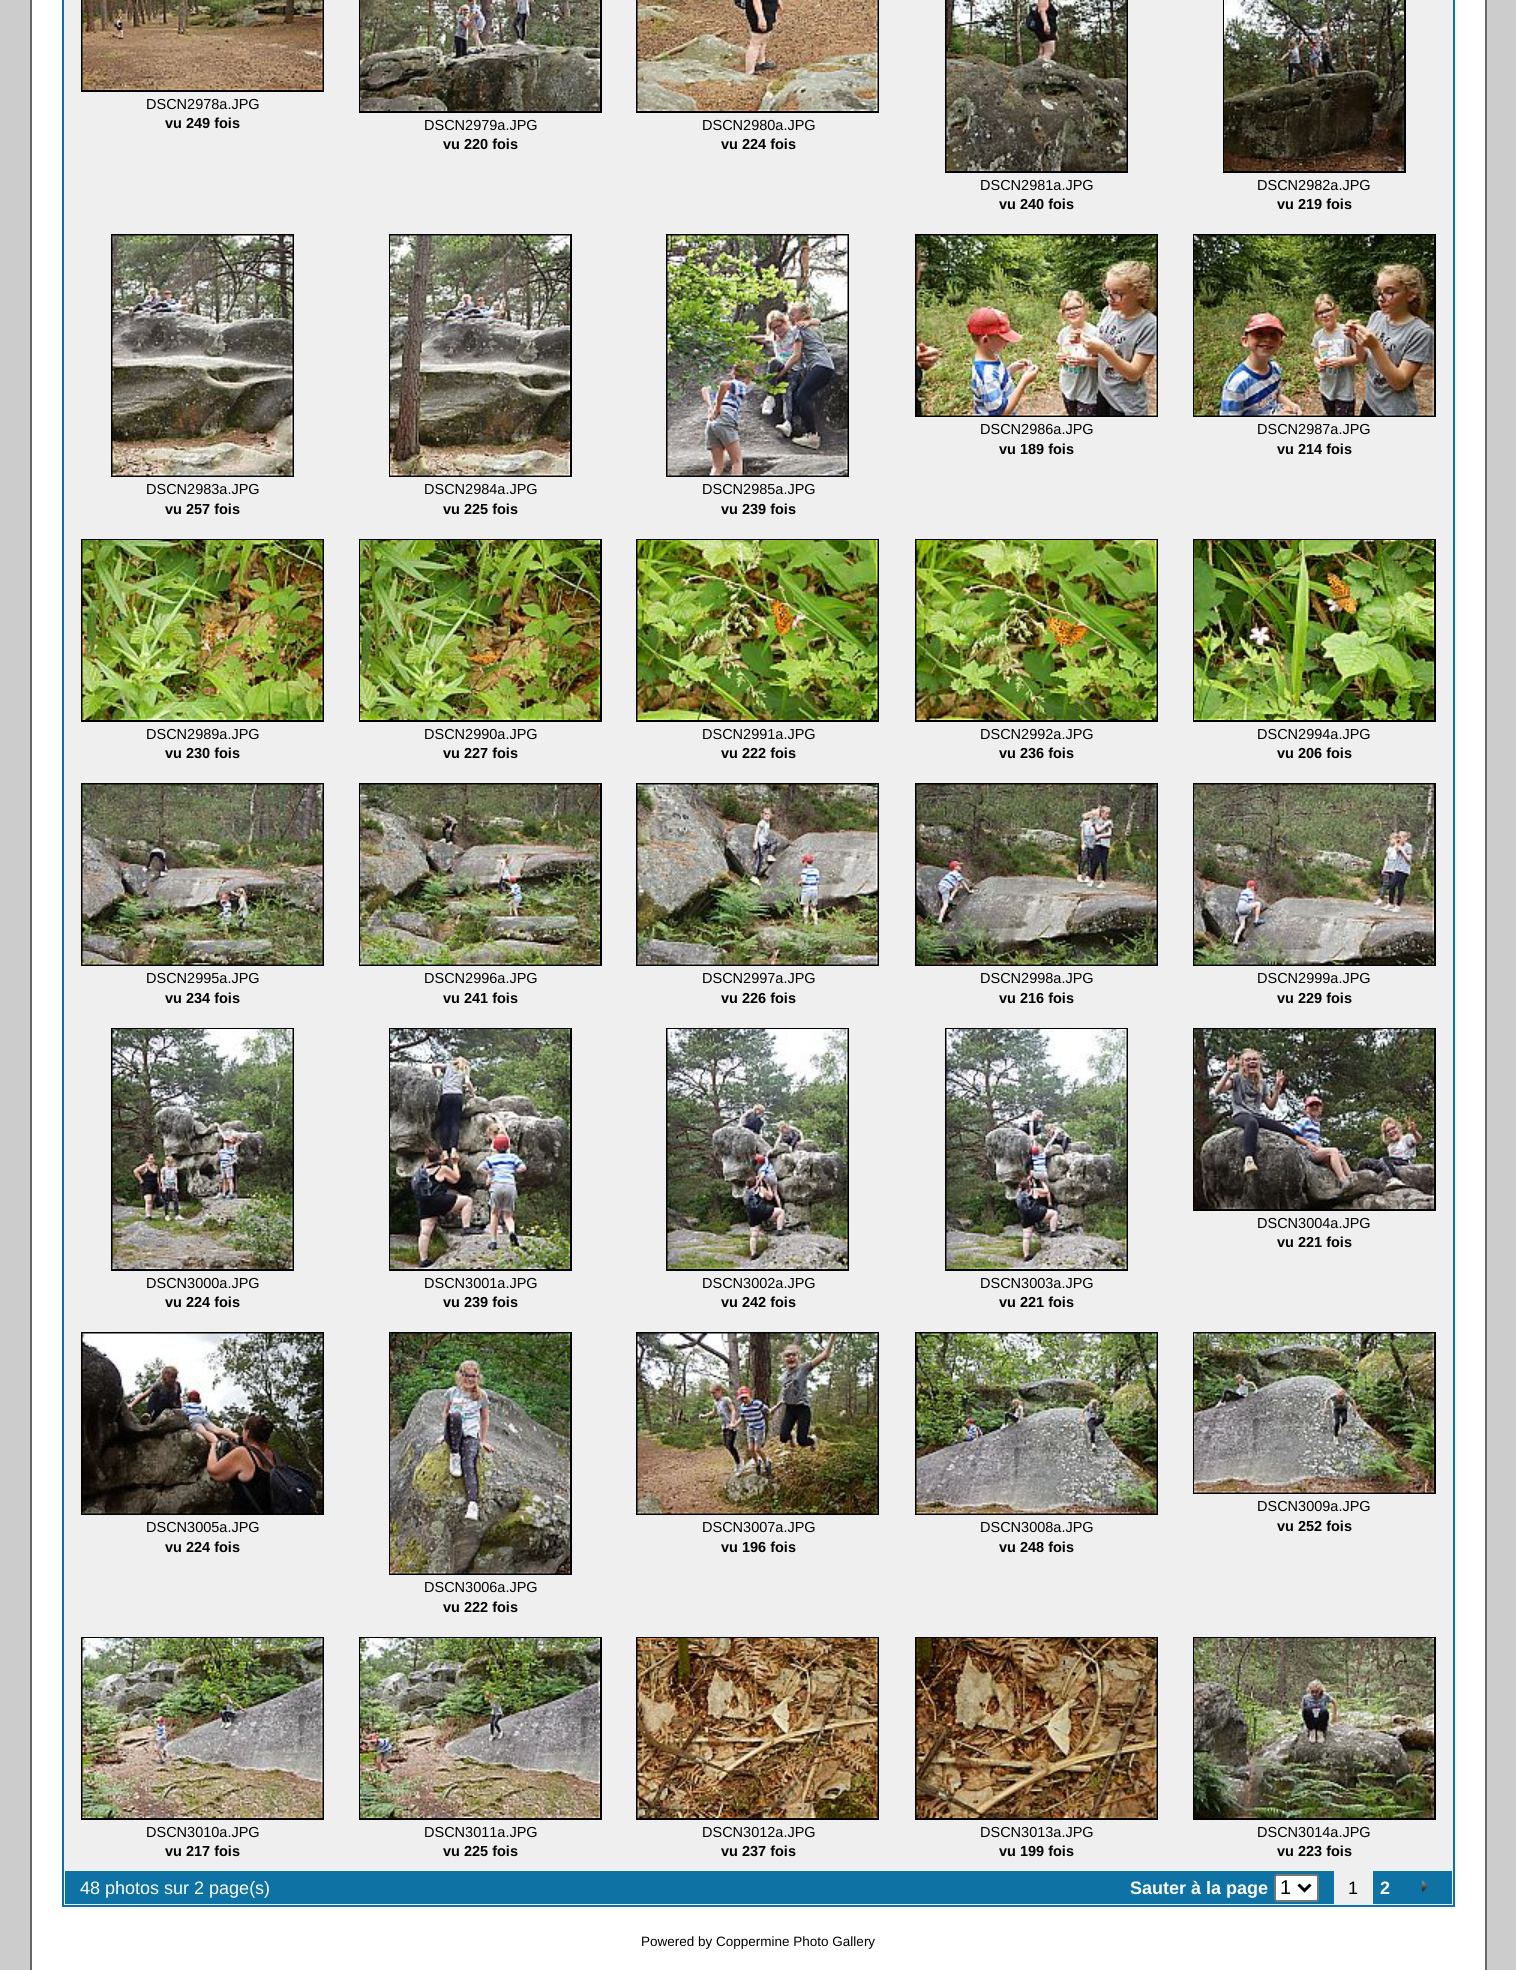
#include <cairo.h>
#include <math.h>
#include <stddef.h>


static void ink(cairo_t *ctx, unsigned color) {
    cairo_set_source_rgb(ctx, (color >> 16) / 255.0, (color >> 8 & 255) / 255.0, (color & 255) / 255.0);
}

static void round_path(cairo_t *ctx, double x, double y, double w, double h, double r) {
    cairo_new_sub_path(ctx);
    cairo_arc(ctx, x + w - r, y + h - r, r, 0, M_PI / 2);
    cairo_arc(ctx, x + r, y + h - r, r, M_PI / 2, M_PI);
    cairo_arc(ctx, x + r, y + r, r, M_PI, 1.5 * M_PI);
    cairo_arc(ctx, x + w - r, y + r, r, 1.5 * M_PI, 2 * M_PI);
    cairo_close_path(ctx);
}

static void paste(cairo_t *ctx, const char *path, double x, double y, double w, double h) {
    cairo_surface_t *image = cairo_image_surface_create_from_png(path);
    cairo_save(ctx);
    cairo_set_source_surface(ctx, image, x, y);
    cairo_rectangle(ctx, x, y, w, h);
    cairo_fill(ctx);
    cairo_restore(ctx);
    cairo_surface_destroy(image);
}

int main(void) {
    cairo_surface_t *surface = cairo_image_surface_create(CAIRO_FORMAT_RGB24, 1516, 1970);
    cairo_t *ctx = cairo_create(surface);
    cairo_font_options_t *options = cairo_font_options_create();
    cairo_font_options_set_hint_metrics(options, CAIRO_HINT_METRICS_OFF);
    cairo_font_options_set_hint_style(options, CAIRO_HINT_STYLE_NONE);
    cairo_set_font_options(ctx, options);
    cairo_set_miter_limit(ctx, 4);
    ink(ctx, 0xCCCCCC);
    cairo_paint(ctx);
    ink(ctx, 0xFFFFFF);
    cairo_rectangle(ctx, 31, -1, 1455, 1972);
    cairo_fill_preserve(ctx);
    ink(ctx, 0x666666);
    cairo_stroke(ctx);
    ink(ctx, 0xEFEFEF);
    cairo_rectangle(ctx, 63, -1, 1391, 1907);
    cairo_fill_preserve(ctx);
    ink(ctx, 0x0E72A4);
    cairo_stroke(ctx);
    cairo_rectangle(ctx, 82, -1, 241, 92);
    ink(ctx, 0x000000);
    cairo_stroke(ctx);
    paste(ctx, "media/1.png", 82, 0, 241, 90);
    cairo_select_font_face(ctx, "Liberation Sans", CAIRO_FONT_SLANT_NORMAL, CAIRO_FONT_WEIGHT_NORMAL);
    cairo_set_font_size(ctx, 14.5);
    cairo_move_to(ctx, 146, 109);
    cairo_show_text(ctx, "DSCN2978a.JPG");
    cairo_select_font_face(ctx, "Liberation Sans", CAIRO_FONT_SLANT_NORMAL, CAIRO_FONT_WEIGHT_BOLD);
    cairo_move_to(ctx, 165, 128);
    cairo_show_text(ctx, "vu 249 fois");
    cairo_rectangle(ctx, 360, -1, 241, 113);
    cairo_stroke(ctx);
    paste(ctx, "media/2.png", 360, 0, 240, 111);
    cairo_select_font_face(ctx, "Liberation Sans", CAIRO_FONT_SLANT_NORMAL, CAIRO_FONT_WEIGHT_NORMAL);
    cairo_move_to(ctx, 424, 130);
    cairo_show_text(ctx, "DSCN2979a.JPG");
    cairo_select_font_face(ctx, "Liberation Sans", CAIRO_FONT_SLANT_NORMAL, CAIRO_FONT_WEIGHT_BOLD);
    cairo_move_to(ctx, 443, 149);
    cairo_show_text(ctx, "vu 220 fois");
    cairo_rectangle(ctx, 637, -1, 241, 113);
    cairo_stroke(ctx);
    paste(ctx, "media/3.png", 637, 0, 241, 111);
    cairo_select_font_face(ctx, "Liberation Sans", CAIRO_FONT_SLANT_NORMAL, CAIRO_FONT_WEIGHT_NORMAL);
    cairo_move_to(ctx, 702, 130);
    cairo_show_text(ctx, "DSCN2980a.JPG");
    cairo_select_font_face(ctx, "Liberation Sans", CAIRO_FONT_SLANT_NORMAL, CAIRO_FONT_WEIGHT_BOLD);
    cairo_move_to(ctx, 721, 149);
    cairo_show_text(ctx, "vu 224 fois");
    cairo_rectangle(ctx, 946, -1, 181, 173);
    cairo_stroke(ctx);
    paste(ctx, "media/4.png", 946, 0, 181, 171);
    cairo_select_font_face(ctx, "Liberation Sans", CAIRO_FONT_SLANT_NORMAL, CAIRO_FONT_WEIGHT_NORMAL);
    cairo_move_to(ctx, 980, 190);
    cairo_show_text(ctx, "DSCN2981a.JPG");
    cairo_select_font_face(ctx, "Liberation Sans", CAIRO_FONT_SLANT_NORMAL, CAIRO_FONT_WEIGHT_BOLD);
    cairo_move_to(ctx, 999, 209);
    cairo_show_text(ctx, "vu 240 fois");
    cairo_rectangle(ctx, 1224, -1, 181, 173);
    cairo_stroke(ctx);
    paste(ctx, "media/5.png", 1224, 0, 180, 171);
    cairo_select_font_face(ctx, "Liberation Sans", CAIRO_FONT_SLANT_NORMAL, CAIRO_FONT_WEIGHT_NORMAL);
    cairo_move_to(ctx, 1257, 190);
    cairo_show_text(ctx, "DSCN2982a.JPG");
    cairo_select_font_face(ctx, "Liberation Sans", CAIRO_FONT_SLANT_NORMAL, CAIRO_FONT_WEIGHT_BOLD);
    cairo_move_to(ctx, 1277, 209);
    cairo_show_text(ctx, "vu 219 fois");
    cairo_rectangle(ctx, 916, 235, 241, 181);
    cairo_stroke(ctx);
    paste(ctx, "media/6.png", 916, 235, 241, 181);
    cairo_select_font_face(ctx, "Liberation Sans", CAIRO_FONT_SLANT_NORMAL, CAIRO_FONT_WEIGHT_NORMAL);
    cairo_move_to(ctx, 980, 434);
    cairo_show_text(ctx, "DSCN2986a.JPG");
    cairo_select_font_face(ctx, "Liberation Sans", CAIRO_FONT_SLANT_NORMAL, CAIRO_FONT_WEIGHT_BOLD);
    cairo_move_to(ctx, 999, 454);
    cairo_show_text(ctx, "vu 189 fois");
    cairo_rectangle(ctx, 1194, 235, 241, 181);
    cairo_stroke(ctx);
    paste(ctx, "media/7.png", 1194, 235, 240, 181);
    cairo_select_font_face(ctx, "Liberation Sans", CAIRO_FONT_SLANT_NORMAL, CAIRO_FONT_WEIGHT_NORMAL);
    cairo_move_to(ctx, 1257, 434);
    cairo_show_text(ctx, "DSCN2987a.JPG");
    cairo_select_font_face(ctx, "Liberation Sans", CAIRO_FONT_SLANT_NORMAL, CAIRO_FONT_WEIGHT_BOLD);
    cairo_move_to(ctx, 1277, 454);
    cairo_show_text(ctx, "vu 214 fois");
    cairo_rectangle(ctx, 112, 235, 181, 241);
    cairo_stroke(ctx);
    paste(ctx, "media/8.png", 112, 235, 181, 241);
    cairo_select_font_face(ctx, "Liberation Sans", CAIRO_FONT_SLANT_NORMAL, CAIRO_FONT_WEIGHT_NORMAL);
    cairo_move_to(ctx, 146, 494);
    cairo_show_text(ctx, "DSCN2983a.JPG");
    cairo_select_font_face(ctx, "Liberation Sans", CAIRO_FONT_SLANT_NORMAL, CAIRO_FONT_WEIGHT_BOLD);
    cairo_move_to(ctx, 165, 514);
    cairo_show_text(ctx, "vu 257 fois");
    cairo_rectangle(ctx, 390, 235, 181, 241);
    cairo_stroke(ctx);
    paste(ctx, "media/9.png", 390, 235, 180, 241);
    cairo_select_font_face(ctx, "Liberation Sans", CAIRO_FONT_SLANT_NORMAL, CAIRO_FONT_WEIGHT_NORMAL);
    cairo_move_to(ctx, 424, 494);
    cairo_show_text(ctx, "DSCN2984a.JPG");
    cairo_select_font_face(ctx, "Liberation Sans", CAIRO_FONT_SLANT_NORMAL, CAIRO_FONT_WEIGHT_BOLD);
    cairo_move_to(ctx, 443, 514);
    cairo_show_text(ctx, "vu 225 fois");
    cairo_rectangle(ctx, 667, 235, 181, 241);
    cairo_stroke(ctx);
    paste(ctx, "media/10.png", 667, 235, 181, 241);
    cairo_select_font_face(ctx, "Liberation Sans", CAIRO_FONT_SLANT_NORMAL, CAIRO_FONT_WEIGHT_NORMAL);
    cairo_move_to(ctx, 702, 494);
    cairo_show_text(ctx, "DSCN2985a.JPG");
    cairo_select_font_face(ctx, "Liberation Sans", CAIRO_FONT_SLANT_NORMAL, CAIRO_FONT_WEIGHT_BOLD);
    cairo_move_to(ctx, 721, 514);
    cairo_show_text(ctx, "vu 239 fois");
    cairo_rectangle(ctx, 82, 540, 241, 181);
    cairo_stroke(ctx);
    paste(ctx, "media/11.png", 82, 540, 241, 180);
    cairo_select_font_face(ctx, "Liberation Sans", CAIRO_FONT_SLANT_NORMAL, CAIRO_FONT_WEIGHT_NORMAL);
    cairo_move_to(ctx, 146, 739);
    cairo_show_text(ctx, "DSCN2989a.JPG");
    cairo_select_font_face(ctx, "Liberation Sans", CAIRO_FONT_SLANT_NORMAL, CAIRO_FONT_WEIGHT_BOLD);
    cairo_move_to(ctx, 165, 758);
    cairo_show_text(ctx, "vu 230 fois");
    cairo_rectangle(ctx, 360, 540, 241, 181);
    cairo_stroke(ctx);
    paste(ctx, "media/12.png", 360, 540, 240, 180);
    cairo_select_font_face(ctx, "Liberation Sans", CAIRO_FONT_SLANT_NORMAL, CAIRO_FONT_WEIGHT_NORMAL);
    cairo_move_to(ctx, 424, 739);
    cairo_show_text(ctx, "DSCN2990a.JPG");
    cairo_select_font_face(ctx, "Liberation Sans", CAIRO_FONT_SLANT_NORMAL, CAIRO_FONT_WEIGHT_BOLD);
    cairo_move_to(ctx, 443, 758);
    cairo_show_text(ctx, "vu 227 fois");
    cairo_rectangle(ctx, 637, 540, 241, 181);
    cairo_stroke(ctx);
    paste(ctx, "media/13.png", 637, 540, 241, 180);
    cairo_select_font_face(ctx, "Liberation Sans", CAIRO_FONT_SLANT_NORMAL, CAIRO_FONT_WEIGHT_NORMAL);
    cairo_move_to(ctx, 702, 739);
    cairo_show_text(ctx, "DSCN2991a.JPG");
    cairo_select_font_face(ctx, "Liberation Sans", CAIRO_FONT_SLANT_NORMAL, CAIRO_FONT_WEIGHT_BOLD);
    cairo_move_to(ctx, 721, 758);
    cairo_show_text(ctx, "vu 222 fois");
    cairo_rectangle(ctx, 916, 540, 241, 181);
    cairo_stroke(ctx);
    paste(ctx, "media/14.png", 916, 540, 241, 180);
    cairo_select_font_face(ctx, "Liberation Sans", CAIRO_FONT_SLANT_NORMAL, CAIRO_FONT_WEIGHT_NORMAL);
    cairo_move_to(ctx, 980, 739);
    cairo_show_text(ctx, "DSCN2992a.JPG");
    cairo_select_font_face(ctx, "Liberation Sans", CAIRO_FONT_SLANT_NORMAL, CAIRO_FONT_WEIGHT_BOLD);
    cairo_move_to(ctx, 999, 758);
    cairo_show_text(ctx, "vu 236 fois");
    cairo_rectangle(ctx, 1194, 540, 241, 181);
    cairo_stroke(ctx);
    paste(ctx, "media/15.png", 1194, 540, 240, 180);
    cairo_select_font_face(ctx, "Liberation Sans", CAIRO_FONT_SLANT_NORMAL, CAIRO_FONT_WEIGHT_NORMAL);
    cairo_move_to(ctx, 1257, 739);
    cairo_show_text(ctx, "DSCN2994a.JPG");
    cairo_select_font_face(ctx, "Liberation Sans", CAIRO_FONT_SLANT_NORMAL, CAIRO_FONT_WEIGHT_BOLD);
    cairo_move_to(ctx, 1277, 758);
    cairo_show_text(ctx, "vu 206 fois");
    cairo_rectangle(ctx, 82, 784, 241, 181);
    cairo_stroke(ctx);
    paste(ctx, "media/16.png", 82, 784, 241, 181);
    cairo_select_font_face(ctx, "Liberation Sans", CAIRO_FONT_SLANT_NORMAL, CAIRO_FONT_WEIGHT_NORMAL);
    cairo_move_to(ctx, 146, 983);
    cairo_show_text(ctx, "DSCN2995a.JPG");
    cairo_select_font_face(ctx, "Liberation Sans", CAIRO_FONT_SLANT_NORMAL, CAIRO_FONT_WEIGHT_BOLD);
    cairo_move_to(ctx, 165, 1003);
    cairo_show_text(ctx, "vu 234 fois");
    cairo_rectangle(ctx, 360, 784, 241, 181);
    cairo_stroke(ctx);
    paste(ctx, "media/17.png", 360, 784, 240, 181);
    cairo_select_font_face(ctx, "Liberation Sans", CAIRO_FONT_SLANT_NORMAL, CAIRO_FONT_WEIGHT_NORMAL);
    cairo_move_to(ctx, 424, 983);
    cairo_show_text(ctx, "DSCN2996a.JPG");
    cairo_select_font_face(ctx, "Liberation Sans", CAIRO_FONT_SLANT_NORMAL, CAIRO_FONT_WEIGHT_BOLD);
    cairo_move_to(ctx, 443, 1003);
    cairo_show_text(ctx, "vu 241 fois");
    cairo_rectangle(ctx, 637, 784, 241, 181);
    cairo_stroke(ctx);
    paste(ctx, "media/18.png", 637, 784, 241, 181);
    cairo_select_font_face(ctx, "Liberation Sans", CAIRO_FONT_SLANT_NORMAL, CAIRO_FONT_WEIGHT_NORMAL);
    cairo_move_to(ctx, 702, 983);
    cairo_show_text(ctx, "DSCN2997a.JPG");
    cairo_select_font_face(ctx, "Liberation Sans", CAIRO_FONT_SLANT_NORMAL, CAIRO_FONT_WEIGHT_BOLD);
    cairo_move_to(ctx, 721, 1003);
    cairo_show_text(ctx, "vu 226 fois");
    cairo_rectangle(ctx, 916, 784, 241, 181);
    cairo_stroke(ctx);
    paste(ctx, "media/19.png", 916, 784, 241, 181);
    cairo_select_font_face(ctx, "Liberation Sans", CAIRO_FONT_SLANT_NORMAL, CAIRO_FONT_WEIGHT_NORMAL);
    cairo_move_to(ctx, 980, 983);
    cairo_show_text(ctx, "DSCN2998a.JPG");
    cairo_select_font_face(ctx, "Liberation Sans", CAIRO_FONT_SLANT_NORMAL, CAIRO_FONT_WEIGHT_BOLD);
    cairo_move_to(ctx, 999, 1003);
    cairo_show_text(ctx, "vu 216 fois");
    cairo_rectangle(ctx, 1194, 784, 241, 181);
    cairo_stroke(ctx);
    paste(ctx, "media/20.png", 1194, 784, 240, 181);
    cairo_select_font_face(ctx, "Liberation Sans", CAIRO_FONT_SLANT_NORMAL, CAIRO_FONT_WEIGHT_NORMAL);
    cairo_move_to(ctx, 1257, 983);
    cairo_show_text(ctx, "DSCN2999a.JPG");
    cairo_select_font_face(ctx, "Liberation Sans", CAIRO_FONT_SLANT_NORMAL, CAIRO_FONT_WEIGHT_BOLD);
    cairo_move_to(ctx, 1277, 1003);
    cairo_show_text(ctx, "vu 229 fois");
    cairo_rectangle(ctx, 1194, 1029, 241, 181);
    cairo_stroke(ctx);
    paste(ctx, "media/21.png", 1194, 1029, 240, 180);
    cairo_select_font_face(ctx, "Liberation Sans", CAIRO_FONT_SLANT_NORMAL, CAIRO_FONT_WEIGHT_NORMAL);
    cairo_move_to(ctx, 1257, 1228);
    cairo_show_text(ctx, "DSCN3004a.JPG");
    cairo_select_font_face(ctx, "Liberation Sans", CAIRO_FONT_SLANT_NORMAL, CAIRO_FONT_WEIGHT_BOLD);
    cairo_move_to(ctx, 1277, 1247);
    cairo_show_text(ctx, "vu 221 fois");
    cairo_rectangle(ctx, 112, 1029, 181, 241);
    cairo_stroke(ctx);
    paste(ctx, "media/22.png", 112, 1029, 181, 240);
    cairo_select_font_face(ctx, "Liberation Sans", CAIRO_FONT_SLANT_NORMAL, CAIRO_FONT_WEIGHT_NORMAL);
    cairo_move_to(ctx, 146, 1288);
    cairo_show_text(ctx, "DSCN3000a.JPG");
    cairo_select_font_face(ctx, "Liberation Sans", CAIRO_FONT_SLANT_NORMAL, CAIRO_FONT_WEIGHT_BOLD);
    cairo_move_to(ctx, 165, 1307);
    cairo_show_text(ctx, "vu 224 fois");
    cairo_rectangle(ctx, 390, 1029, 181, 241);
    cairo_stroke(ctx);
    paste(ctx, "media/23.png", 390, 1029, 180, 240);
    cairo_select_font_face(ctx, "Liberation Sans", CAIRO_FONT_SLANT_NORMAL, CAIRO_FONT_WEIGHT_NORMAL);
    cairo_move_to(ctx, 424, 1288);
    cairo_show_text(ctx, "DSCN3001a.JPG");
    cairo_select_font_face(ctx, "Liberation Sans", CAIRO_FONT_SLANT_NORMAL, CAIRO_FONT_WEIGHT_BOLD);
    cairo_move_to(ctx, 443, 1307);
    cairo_show_text(ctx, "vu 239 fois");
    cairo_rectangle(ctx, 667, 1029, 181, 241);
    cairo_stroke(ctx);
    paste(ctx, "media/24.png", 667, 1029, 181, 240);
    cairo_select_font_face(ctx, "Liberation Sans", CAIRO_FONT_SLANT_NORMAL, CAIRO_FONT_WEIGHT_NORMAL);
    cairo_move_to(ctx, 702, 1288);
    cairo_show_text(ctx, "DSCN3002a.JPG");
    cairo_select_font_face(ctx, "Liberation Sans", CAIRO_FONT_SLANT_NORMAL, CAIRO_FONT_WEIGHT_BOLD);
    cairo_move_to(ctx, 721, 1307);
    cairo_show_text(ctx, "vu 242 fois");
    cairo_rectangle(ctx, 946, 1029, 181, 241);
    cairo_stroke(ctx);
    paste(ctx, "media/25.png", 946, 1029, 181, 240);
    cairo_select_font_face(ctx, "Liberation Sans", CAIRO_FONT_SLANT_NORMAL, CAIRO_FONT_WEIGHT_NORMAL);
    cairo_move_to(ctx, 980, 1288);
    cairo_show_text(ctx, "DSCN3003a.JPG");
    cairo_select_font_face(ctx, "Liberation Sans", CAIRO_FONT_SLANT_NORMAL, CAIRO_FONT_WEIGHT_BOLD);
    cairo_move_to(ctx, 999, 1307);
    cairo_show_text(ctx, "vu 221 fois");
    cairo_rectangle(ctx, 1194, 1333, 241, 160);
    cairo_stroke(ctx);
    paste(ctx, "media/26.png", 1194, 1333, 240, 160);
    cairo_select_font_face(ctx, "Liberation Sans", CAIRO_FONT_SLANT_NORMAL, CAIRO_FONT_WEIGHT_NORMAL);
    cairo_move_to(ctx, 1257, 1511);
    cairo_show_text(ctx, "DSCN3009a.JPG");
    cairo_select_font_face(ctx, "Liberation Sans", CAIRO_FONT_SLANT_NORMAL, CAIRO_FONT_WEIGHT_BOLD);
    cairo_move_to(ctx, 1277, 1531);
    cairo_show_text(ctx, "vu 252 fois");
    cairo_rectangle(ctx, 82, 1333, 241, 181);
    cairo_stroke(ctx);
    paste(ctx, "media/27.png", 82, 1333, 241, 181);
    cairo_select_font_face(ctx, "Liberation Sans", CAIRO_FONT_SLANT_NORMAL, CAIRO_FONT_WEIGHT_NORMAL);
    cairo_move_to(ctx, 146, 1532);
    cairo_show_text(ctx, "DSCN3005a.JPG");
    cairo_select_font_face(ctx, "Liberation Sans", CAIRO_FONT_SLANT_NORMAL, CAIRO_FONT_WEIGHT_BOLD);
    cairo_move_to(ctx, 165, 1552);
    cairo_show_text(ctx, "vu 224 fois");
    cairo_rectangle(ctx, 637, 1333, 241, 181);
    cairo_stroke(ctx);
    paste(ctx, "media/28.png", 637, 1333, 241, 181);
    cairo_select_font_face(ctx, "Liberation Sans", CAIRO_FONT_SLANT_NORMAL, CAIRO_FONT_WEIGHT_NORMAL);
    cairo_move_to(ctx, 702, 1532);
    cairo_show_text(ctx, "DSCN3007a.JPG");
    cairo_select_font_face(ctx, "Liberation Sans", CAIRO_FONT_SLANT_NORMAL, CAIRO_FONT_WEIGHT_BOLD);
    cairo_move_to(ctx, 721, 1552);
    cairo_show_text(ctx, "vu 196 fois");
    cairo_rectangle(ctx, 916, 1333, 241, 181);
    cairo_stroke(ctx);
    paste(ctx, "media/29.png", 916, 1333, 241, 181);
    cairo_select_font_face(ctx, "Liberation Sans", CAIRO_FONT_SLANT_NORMAL, CAIRO_FONT_WEIGHT_NORMAL);
    cairo_move_to(ctx, 980, 1532);
    cairo_show_text(ctx, "DSCN3008a.JPG");
    cairo_select_font_face(ctx, "Liberation Sans", CAIRO_FONT_SLANT_NORMAL, CAIRO_FONT_WEIGHT_BOLD);
    cairo_move_to(ctx, 999, 1552);
    cairo_show_text(ctx, "vu 248 fois");
    cairo_rectangle(ctx, 390, 1333, 181, 241);
    cairo_stroke(ctx);
    paste(ctx, "media/30.png", 390, 1333, 180, 241);
    cairo_select_font_face(ctx, "Liberation Sans", CAIRO_FONT_SLANT_NORMAL, CAIRO_FONT_WEIGHT_NORMAL);
    cairo_move_to(ctx, 424, 1592);
    cairo_show_text(ctx, "DSCN3006a.JPG");
    cairo_select_font_face(ctx, "Liberation Sans", CAIRO_FONT_SLANT_NORMAL, CAIRO_FONT_WEIGHT_BOLD);
    cairo_move_to(ctx, 443, 1612);
    cairo_show_text(ctx, "vu 222 fois");
    cairo_rectangle(ctx, 82, 1638, 241, 181);
    cairo_stroke(ctx);
    paste(ctx, "media/31.png", 82, 1638, 241, 180);
    cairo_select_font_face(ctx, "Liberation Sans", CAIRO_FONT_SLANT_NORMAL, CAIRO_FONT_WEIGHT_NORMAL);
    cairo_move_to(ctx, 146, 1837);
    cairo_show_text(ctx, "DSCN3010a.JPG");
    cairo_select_font_face(ctx, "Liberation Sans", CAIRO_FONT_SLANT_NORMAL, CAIRO_FONT_WEIGHT_BOLD);
    cairo_move_to(ctx, 165, 1856);
    cairo_show_text(ctx, "vu 217 fois");
    cairo_rectangle(ctx, 360, 1638, 241, 181);
    cairo_stroke(ctx);
    paste(ctx, "media/32.png", 360, 1638, 240, 180);
    cairo_select_font_face(ctx, "Liberation Sans", CAIRO_FONT_SLANT_NORMAL, CAIRO_FONT_WEIGHT_NORMAL);
    cairo_move_to(ctx, 424, 1837);
    cairo_show_text(ctx, "DSCN3011a.JPG");
    cairo_select_font_face(ctx, "Liberation Sans", CAIRO_FONT_SLANT_NORMAL, CAIRO_FONT_WEIGHT_BOLD);
    cairo_move_to(ctx, 443, 1856);
    cairo_show_text(ctx, "vu 225 fois");
    cairo_rectangle(ctx, 637, 1638, 241, 181);
    cairo_stroke(ctx);
    paste(ctx, "media/33.png", 637, 1638, 241, 180);
    cairo_select_font_face(ctx, "Liberation Sans", CAIRO_FONT_SLANT_NORMAL, CAIRO_FONT_WEIGHT_NORMAL);
    cairo_move_to(ctx, 702, 1837);
    cairo_show_text(ctx, "DSCN3012a.JPG");
    cairo_select_font_face(ctx, "Liberation Sans", CAIRO_FONT_SLANT_NORMAL, CAIRO_FONT_WEIGHT_BOLD);
    cairo_move_to(ctx, 721, 1856);
    cairo_show_text(ctx, "vu 237 fois");
    cairo_rectangle(ctx, 916, 1638, 241, 181);
    cairo_stroke(ctx);
    paste(ctx, "media/34.png", 916, 1638, 241, 180);
    cairo_select_font_face(ctx, "Liberation Sans", CAIRO_FONT_SLANT_NORMAL, CAIRO_FONT_WEIGHT_NORMAL);
    cairo_move_to(ctx, 980, 1837);
    cairo_show_text(ctx, "DSCN3013a.JPG");
    cairo_select_font_face(ctx, "Liberation Sans", CAIRO_FONT_SLANT_NORMAL, CAIRO_FONT_WEIGHT_BOLD);
    cairo_move_to(ctx, 999, 1856);
    cairo_show_text(ctx, "vu 199 fois");
    cairo_rectangle(ctx, 1194, 1638, 241, 181);
    cairo_stroke(ctx);
    paste(ctx, "media/35.png", 1194, 1638, 240, 180);
    cairo_select_font_face(ctx, "Liberation Sans", CAIRO_FONT_SLANT_NORMAL, CAIRO_FONT_WEIGHT_NORMAL);
    cairo_move_to(ctx, 1257, 1837);
    cairo_show_text(ctx, "DSCN3014a.JPG");
    cairo_select_font_face(ctx, "Liberation Sans", CAIRO_FONT_SLANT_NORMAL, CAIRO_FONT_WEIGHT_BOLD);
    cairo_move_to(ctx, 1277, 1856);
    cairo_show_text(ctx, "vu 223 fois");
    ink(ctx, 0x0E72A4);
    cairo_rectangle(ctx, 65, 1871, 1269, 33);
    cairo_fill(ctx);
    cairo_select_font_face(ctx, "Liberation Sans", CAIRO_FONT_SLANT_NORMAL, CAIRO_FONT_WEIGHT_NORMAL);
    cairo_set_font_size(ctx, 18);
    ink(ctx, 0xFFFFFF);
    cairo_move_to(ctx, 80, 1894);
    cairo_show_text(ctx, "48 photos sur 2 page(s)");
    cairo_select_font_face(ctx, "Liberation Sans", CAIRO_FONT_SLANT_NORMAL, CAIRO_FONT_WEIGHT_BOLD);
    cairo_move_to(ctx, 1130, 1894);
    cairo_show_text(ctx, "Sauter à la page");
    round_path(ctx, 1275, 1875, 43, 26, 2);
    cairo_fill_preserve(ctx);
    ink(ctx, 0x767676);
    cairo_stroke(ctx);
    cairo_new_path(ctx);
    cairo_move_to(ctx, 1298.5, 1884.5);
    cairo_line_to(ctx, 1304.5, 1890.5);
    cairo_line_to(ctx, 1310.5, 1884.5);
    ink(ctx, 0x000000);
    cairo_set_line_width(ctx, 3);
    cairo_stroke(ctx);
    cairo_select_font_face(ctx, "Liberation Sans", CAIRO_FONT_SLANT_NORMAL, CAIRO_FONT_WEIGHT_NORMAL);
    cairo_set_font_size(ctx, 20);
    cairo_move_to(ctx, 1280, 1894);
    cairo_show_text(ctx, "1");
    cairo_set_font_size(ctx, 18);
    cairo_move_to(ctx, 1348, 1894);
    cairo_show_text(ctx, "1");
    ink(ctx, 0x0E72A4);
    cairo_rectangle(ctx, 1373, 1871, 79, 33);
    cairo_fill(ctx);
    cairo_select_font_face(ctx, "Liberation Sans", CAIRO_FONT_SLANT_NORMAL, CAIRO_FONT_WEIGHT_BOLD);
    ink(ctx, 0xFFFFFF);
    cairo_move_to(ctx, 1380, 1894);
    cairo_show_text(ctx, "2");
    paste(ctx, "media/36.png", 1421, 1880, 8, 12);
    cairo_select_font_face(ctx, "Liberation Sans", CAIRO_FONT_SLANT_NORMAL, CAIRO_FONT_WEIGHT_NORMAL);
    cairo_set_font_size(ctx, 13.5);
    ink(ctx, 0x000000);
    cairo_move_to(ctx, 641, 1946);
    cairo_show_text(ctx, "Powered by Coppermine Photo Gallery");
    cairo_surface_write_to_png(surface, "image.png");
    cairo_font_options_destroy(options);
    cairo_destroy(ctx);
    cairo_surface_destroy(surface);
    return 0;
}
